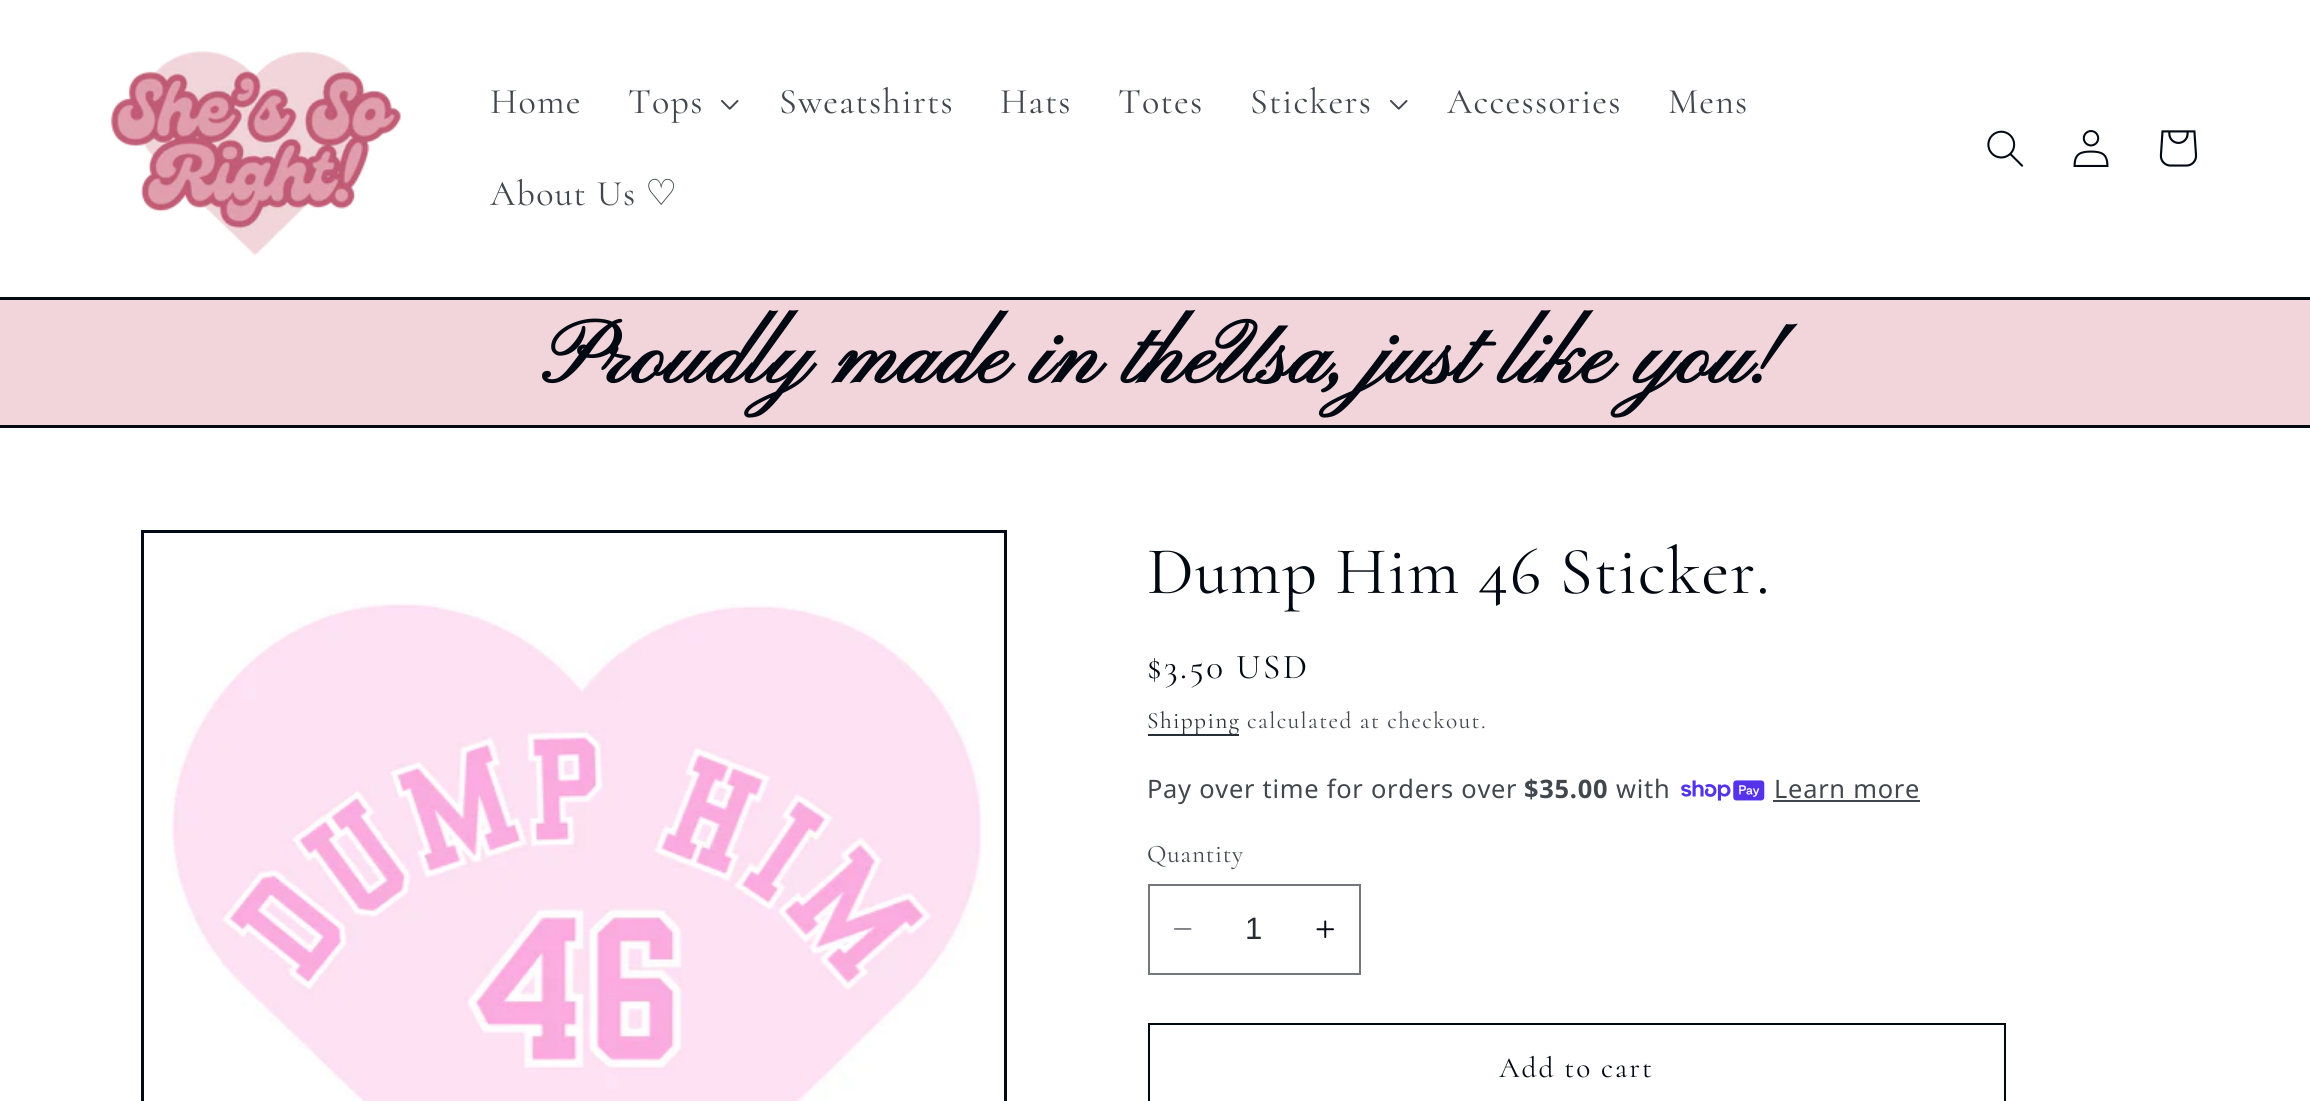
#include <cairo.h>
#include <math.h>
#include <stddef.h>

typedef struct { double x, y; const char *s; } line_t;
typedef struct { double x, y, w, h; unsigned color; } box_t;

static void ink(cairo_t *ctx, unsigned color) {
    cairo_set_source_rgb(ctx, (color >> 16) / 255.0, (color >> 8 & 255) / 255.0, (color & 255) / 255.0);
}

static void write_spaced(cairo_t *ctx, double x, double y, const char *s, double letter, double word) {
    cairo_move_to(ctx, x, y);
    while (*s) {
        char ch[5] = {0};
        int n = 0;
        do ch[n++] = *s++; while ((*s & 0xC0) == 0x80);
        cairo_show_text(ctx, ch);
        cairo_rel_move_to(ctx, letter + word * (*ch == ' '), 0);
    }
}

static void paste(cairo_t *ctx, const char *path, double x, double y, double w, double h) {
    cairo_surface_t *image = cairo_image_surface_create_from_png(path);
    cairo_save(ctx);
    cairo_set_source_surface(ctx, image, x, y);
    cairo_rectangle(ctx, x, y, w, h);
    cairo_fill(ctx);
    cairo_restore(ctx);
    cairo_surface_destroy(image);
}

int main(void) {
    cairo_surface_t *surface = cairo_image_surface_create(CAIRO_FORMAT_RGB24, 2310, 1101);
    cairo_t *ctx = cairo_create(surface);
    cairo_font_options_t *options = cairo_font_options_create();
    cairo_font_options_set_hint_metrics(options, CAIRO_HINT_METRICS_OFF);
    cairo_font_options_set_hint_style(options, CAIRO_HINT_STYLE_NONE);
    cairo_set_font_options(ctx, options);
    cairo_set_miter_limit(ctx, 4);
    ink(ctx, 0xFFFFFF);
    cairo_paint(ctx);
    paste(ctx, "media/1.png", 110, 51, 291, 205);
    cairo_select_font_face(ctx, "Cormorant", CAIRO_FONT_SLANT_NORMAL, CAIRO_FONT_WEIGHT_NORMAL);
    cairo_set_font_size(ctx, 36);
    ink(ctx, 0x41474D);
    write_spaced(ctx, 490, 113, "Home", 1.25, 0);
    write_spaced(ctx, 628, 113, "Tops", 1.25, 0);
    paste(ctx, "media/2.png", 721, 100, 18, 10);
    {
        static const line_t items[] = {
            {779, 113, "Sweatshirts"},
            {1000, 113, "Hats"},
            {1118, 113, "Totes"},
            {1250, 113, "Stickers"},
        };
        for (size_t i = 0; i < sizeof items / sizeof *items; i++) {
            write_spaced(ctx, items[i].x, items[i].y, items[i].s, 1.25, 0);
        }
    }
    paste(ctx, "media/2.png", 1390, 100, 18, 10);
    {
        static const line_t items[] = {
            {1447, 113, "Accessories"},
            {1668, 113, "Mens"},
            {490, 205, "About Us"},
        };
        for (size_t i = 0; i < sizeof items / sizeof *items; i++) {
            write_spaced(ctx, items[i].x, items[i].y, items[i].s, 1.25, 0);
        }
    }
    cairo_select_font_face(ctx, "DejaVu Sans", CAIRO_FONT_SLANT_NORMAL, CAIRO_FONT_WEIGHT_NORMAL);
    write_spaced(ctx, 645, 205, "♡", 1.25, 0);
    paste(ctx, "media/3.png", 1987, 130, 37, 37);
    paste(ctx, "media/4.png", 2073, 130, 36, 37);
    paste(ctx, "media/5.png", 2159, 130, 39, 37);
    {
        static const box_t items[] = {
            {0, 300, 2310, 125, 0xF1D5DB},
            {0, 297, 2310, 3, 0x020912},
            {0, 425, 2310, 3, 0x020912},
        };
        for (size_t i = 0; i < sizeof items / sizeof *items; i++) {
            ink(ctx, items[i].color);
            cairo_rectangle(ctx, items[i].x, items[i].y, items[i].w, items[i].h);
            cairo_fill(ctx);
        }
    }
    cairo_select_font_face(ctx, "Pinyon Script", CAIRO_FONT_SLANT_NORMAL, CAIRO_FONT_WEIGHT_BOLD);
    cairo_set_font_size(ctx, 90);
    write_spaced(ctx, 542, 383, "Proudly made in theUsa, just like you!", 1.35, 0);
    cairo_rectangle(ctx, 142.5, 531.5, 863, 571);
    cairo_set_line_width(ctx, 3);
    cairo_stroke(ctx);
    paste(ctx, "media/6.png", 171, 603, 811, 498);
    cairo_select_font_face(ctx, "Cormorant", CAIRO_FONT_SLANT_NORMAL, CAIRO_FONT_WEIGHT_NORMAL);
    cairo_set_font_size(ctx, 67.5);
    write_spaced(ctx, 1147, 593, "Dump Him 46 Sticker.", 1.35, 0);
    cairo_set_font_size(ctx, 35);
    write_spaced(ctx, 1147, 678, "$3.50 USD", 2.5, 0);
    ink(ctx, 0x282E36);
    cairo_rectangle(ctx, 1148, 734, 91, 2);
    cairo_fill(ctx);
    cairo_set_font_size(ctx, 23.4);
    ink(ctx, 0x272D35);
    write_spaced(ctx, 1147, 728, "Shipping", 1.4, 0);
    ink(ctx, 0x41474D);
    write_spaced(ctx, 1247, 728, "calculated at checkout.", 1.4, 0);
    cairo_select_font_face(ctx, "Noto Sans", CAIRO_FONT_SLANT_NORMAL, CAIRO_FONT_WEIGHT_NORMAL);
    cairo_set_font_size(ctx, 25.4);
    write_spaced(ctx, 1147, 798, "Pay over time for orders over", 0.75, 0);
    cairo_select_font_face(ctx, "Noto Sans", CAIRO_FONT_SLANT_NORMAL, CAIRO_FONT_WEIGHT_BOLD);
    write_spaced(ctx, 1524, 798, "$35.00", 0.75, 0);
    cairo_select_font_face(ctx, "Noto Sans", CAIRO_FONT_SLANT_NORMAL, CAIRO_FONT_WEIGHT_NORMAL);
    write_spaced(ctx, 1616, 798, "with", 0.75, 0);
    paste(ctx, "media/7.png", 1681, 780, 84, 21);
    write_spaced(ctx, 1774, 798, "Learn more", 0.75, 0);
    cairo_rectangle(ctx, 1773, 800, 147, 2);
    cairo_fill(ctx);
    cairo_select_font_face(ctx, "Cormorant", CAIRO_FONT_SLANT_NORMAL, CAIRO_FONT_WEIGHT_NORMAL);
    write_spaced(ctx, 1147, 862, "Quantity", 0.75, 0);
    paste(ctx, "media/8.png", 1174, 928, 18, 2);
    paste(ctx, "media/9.png", 1316, 920, 18, 18);
    cairo_rectangle(ctx, 1149, 885, 211, 89);
    ink(ctx, 0x74787D);
    cairo_set_line_width(ctx, 2);
    cairo_stroke(ctx);
    cairo_select_font_face(ctx, "Liberation Sans", CAIRO_FONT_SLANT_NORMAL, CAIRO_FONT_WEIGHT_NORMAL);
    cairo_set_font_size(ctx, 31);
    ink(ctx, 0x272D35);
    cairo_move_to(ctx, 1245, 939);
    cairo_show_text(ctx, "1");
    cairo_rectangle(ctx, 1149, 1024, 856, 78);
    ink(ctx, 0x020912);
    cairo_stroke(ctx);
    cairo_select_font_face(ctx, "Cormorant", CAIRO_FONT_SLANT_NORMAL, CAIRO_FONT_WEIGHT_NORMAL);
    cairo_set_font_size(ctx, 29.25);
    write_spaced(ctx, 1499, 1077, "Add to cart", 2, 0);
    cairo_surface_write_to_png(surface, "image.png");
    cairo_font_options_destroy(options);
    cairo_destroy(ctx);
    cairo_surface_destroy(surface);
    return 0;
}
